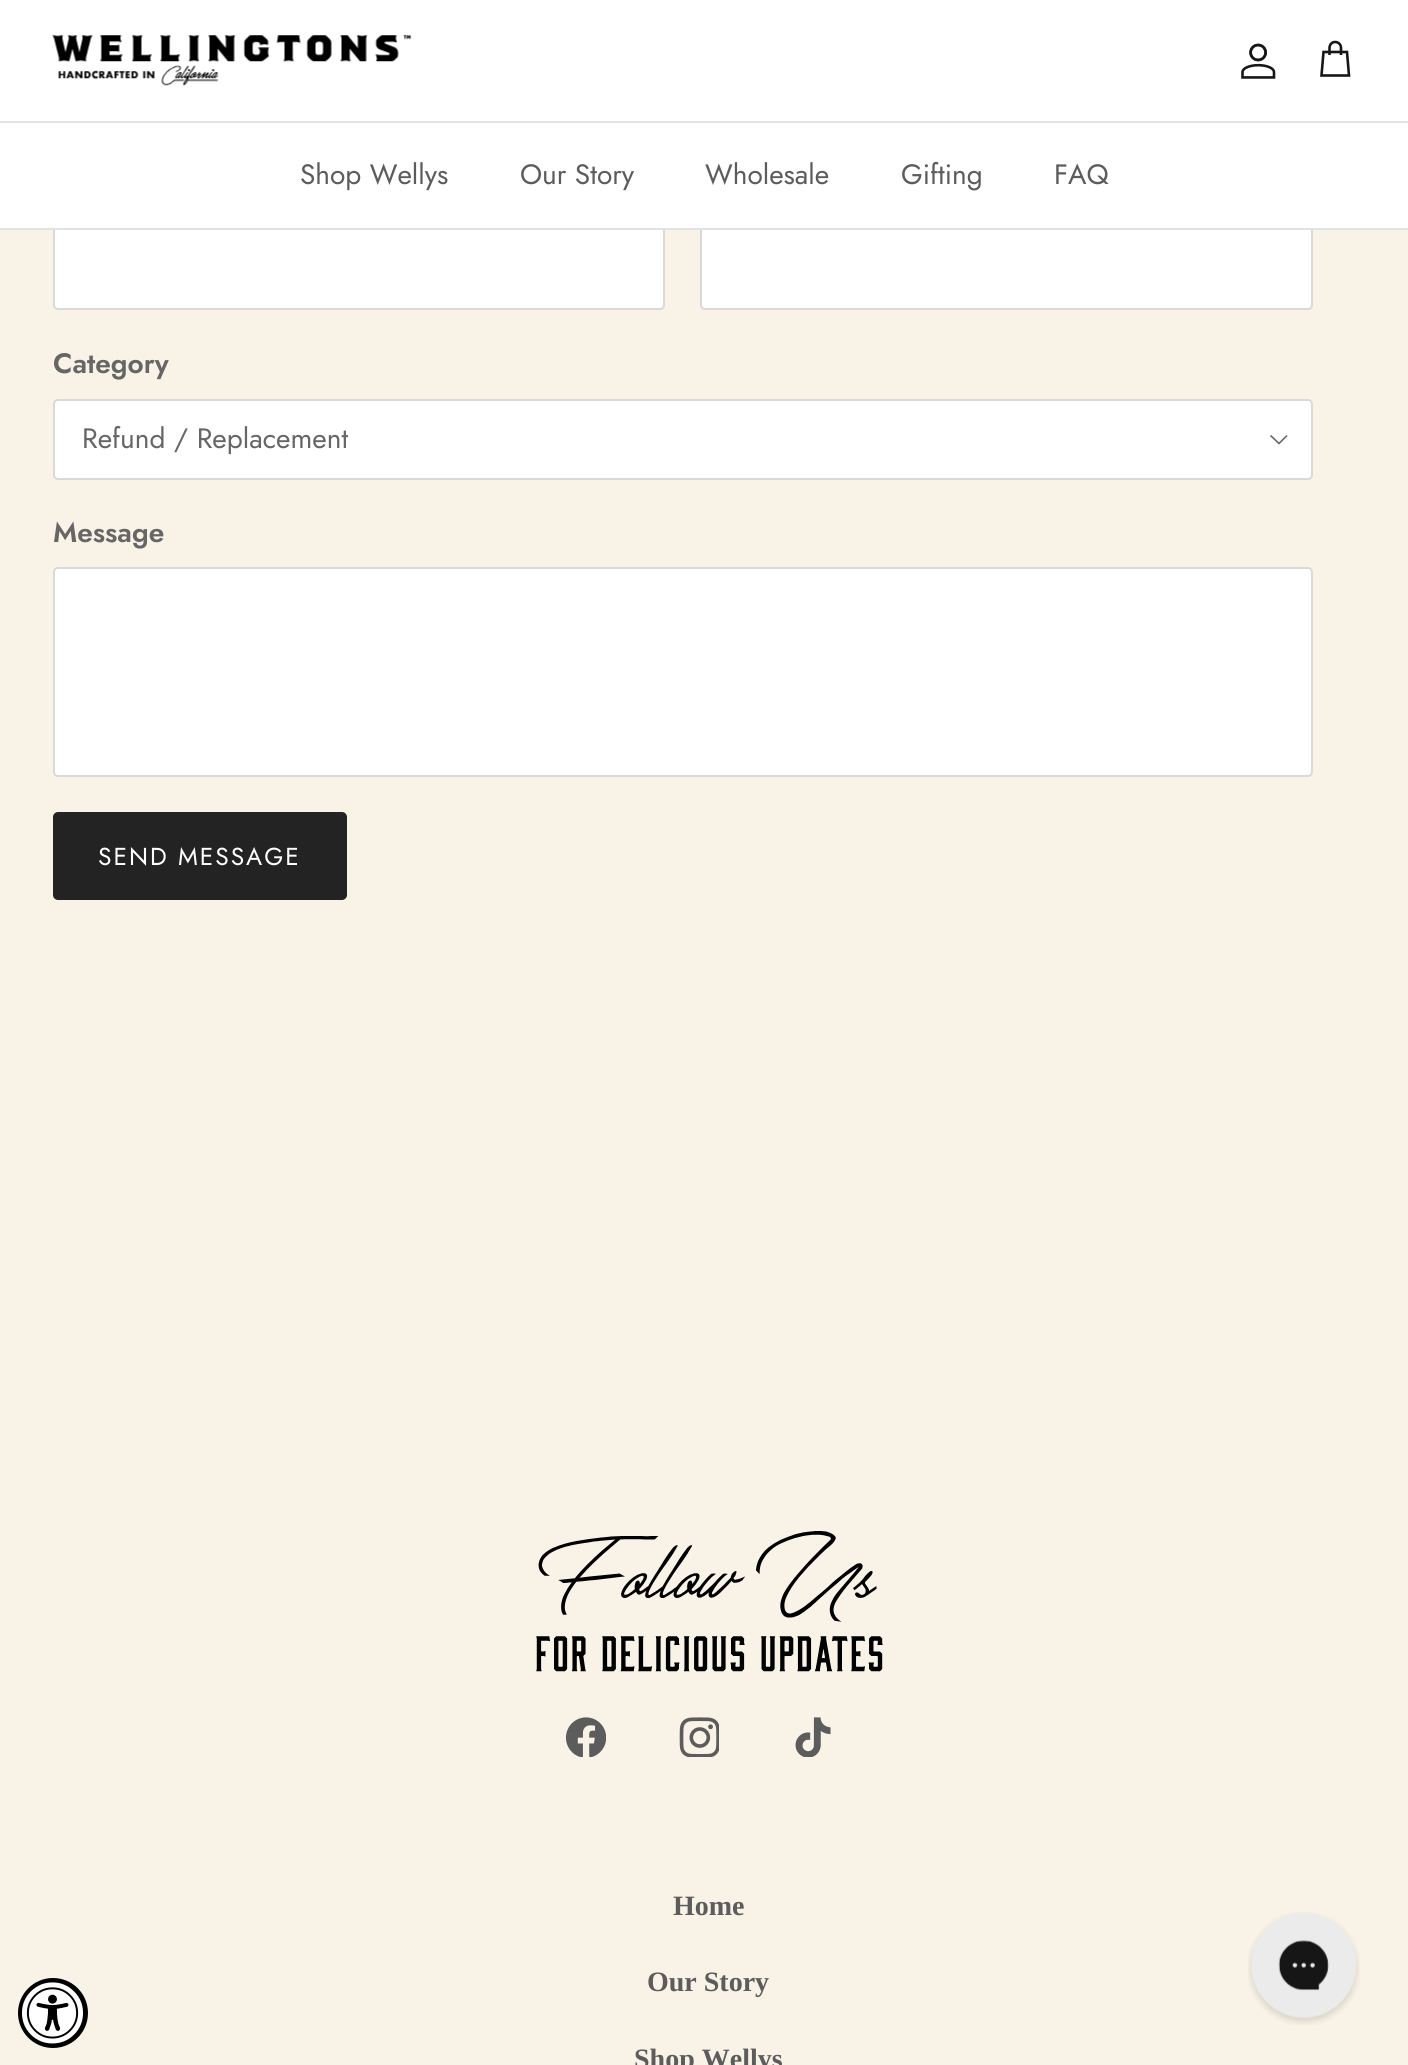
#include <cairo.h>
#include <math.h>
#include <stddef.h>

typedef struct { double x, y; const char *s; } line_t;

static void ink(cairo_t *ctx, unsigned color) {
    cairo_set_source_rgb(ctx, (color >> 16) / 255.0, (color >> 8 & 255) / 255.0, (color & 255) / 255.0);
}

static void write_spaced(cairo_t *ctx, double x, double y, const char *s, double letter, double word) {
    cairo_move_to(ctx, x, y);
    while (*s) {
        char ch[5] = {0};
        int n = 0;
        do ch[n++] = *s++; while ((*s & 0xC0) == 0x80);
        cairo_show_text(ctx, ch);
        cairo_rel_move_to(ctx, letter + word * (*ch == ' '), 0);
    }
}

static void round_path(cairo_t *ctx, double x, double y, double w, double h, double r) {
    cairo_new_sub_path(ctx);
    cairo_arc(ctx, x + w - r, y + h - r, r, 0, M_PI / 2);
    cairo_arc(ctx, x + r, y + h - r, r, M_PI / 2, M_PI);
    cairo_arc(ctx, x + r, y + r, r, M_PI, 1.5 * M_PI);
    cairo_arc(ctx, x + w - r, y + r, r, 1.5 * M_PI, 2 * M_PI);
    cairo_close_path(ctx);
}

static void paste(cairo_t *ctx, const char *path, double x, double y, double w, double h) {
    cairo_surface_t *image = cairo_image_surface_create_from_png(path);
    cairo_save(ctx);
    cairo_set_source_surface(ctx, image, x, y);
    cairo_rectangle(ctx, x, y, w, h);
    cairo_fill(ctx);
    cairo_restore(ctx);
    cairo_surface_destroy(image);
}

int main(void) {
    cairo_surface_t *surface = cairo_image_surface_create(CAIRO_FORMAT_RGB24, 1408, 2065);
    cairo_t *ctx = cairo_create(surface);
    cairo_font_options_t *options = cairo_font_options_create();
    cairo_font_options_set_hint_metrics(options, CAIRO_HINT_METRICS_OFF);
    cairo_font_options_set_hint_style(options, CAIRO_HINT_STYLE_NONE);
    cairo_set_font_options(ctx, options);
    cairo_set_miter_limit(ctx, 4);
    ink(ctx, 0xF9F2E6);
    cairo_paint(ctx);
    ink(ctx, 0xFFFFFF);
    cairo_rectangle(ctx, 0, 0, 1408, 121);
    cairo_fill(ctx);
    ink(ctx, 0xDFE3E8);
    cairo_rectangle(ctx, 0, 121, 1408, 2);
    cairo_fill(ctx);
    paste(ctx, "media/1.png", 52, 35, 360, 51);
    paste(ctx, "media/2.png", 1241, 43, 35, 36);
    cairo_new_path(ctx);
    cairo_move_to(ctx, 1341, 55);
    cairo_line_to(ctx, 1341, 48);
    cairo_curve_to(ctx, 1341, 44.5, 1338.5, 42, 1335, 42);
    cairo_curve_to(ctx, 1332, 42, 1329.5, 44.5, 1329.5, 48);
    cairo_line_to(ctx, 1329.5, 55);
    cairo_move_to(ctx, 1323.5, 52);
    cairo_line_to(ctx, 1347, 52);
    cairo_line_to(ctx, 1349, 75.5);
    cairo_line_to(ctx, 1321.5, 75.5);
    cairo_close_path(ctx);
    ink(ctx, 0x171717);
    cairo_set_line_width(ctx, 2.6);
    cairo_stroke(ctx);
    ink(ctx, 0xFFFFFF);
    round_path(ctx, 54, 227, 610, 82, 4);
    cairo_fill_preserve(ctx);
    ink(ctx, 0xD9D9D9);
    cairo_set_line_width(ctx, 2);
    cairo_stroke(ctx);
    ink(ctx, 0xFFFFFF);
    round_path(ctx, 701, 227, 611, 82, 4);
    cairo_fill_preserve(ctx);
    ink(ctx, 0xD9D9D9);
    cairo_stroke(ctx);
    ink(ctx, 0xDFE3E8);
    cairo_rectangle(ctx, 0, 228, 1408, 2);
    cairo_fill(ctx);
    ink(ctx, 0xFFFFFF);
    cairo_rectangle(ctx, 0, 123, 1408, 105);
    cairo_fill(ctx);
    cairo_select_font_face(ctx, "Jost", CAIRO_FONT_SLANT_NORMAL, CAIRO_FONT_WEIGHT_NORMAL);
    cairo_set_font_size(ctx, 28);
    ink(ctx, 0x5C5C5C);
    {
        static const line_t items[] = {
            {300, 184, "Shop Wellys"},
            {520, 184, "Our Story"},
            {705, 184, "Wholesale"},
            {901, 184, "Gifting"},
            {1054, 184, "FAQ"},
        };
        for (size_t i = 0; i < sizeof items / sizeof *items; i++) {
            cairo_move_to(ctx, items[i].x, items[i].y);
            cairo_show_text(ctx, items[i].s);
        }
    }
    cairo_select_font_face(ctx, "Jost SemiBold", CAIRO_FONT_SLANT_NORMAL, CAIRO_FONT_WEIGHT_NORMAL);
    ink(ctx, 0x666666);
    cairo_move_to(ctx, 53, 373);
    cairo_show_text(ctx, "Category");
    ink(ctx, 0xFFFFFF);
    round_path(ctx, 54, 400, 1258, 79, 4);
    cairo_fill_preserve(ctx);
    ink(ctx, 0xD9D9D9);
    cairo_stroke(ctx);
    cairo_select_font_face(ctx, "Jost", CAIRO_FONT_SLANT_NORMAL, CAIRO_FONT_WEIGHT_NORMAL);
    ink(ctx, 0x666666);
    cairo_move_to(ctx, 82, 448);
    cairo_show_text(ctx, "Refund / Replacement");
    cairo_new_path(ctx);
    cairo_move_to(ctx, 1287, 435.5);
    cairo_line_to(ctx, 1279, 443.5);
    cairo_line_to(ctx, 1270.5, 435.5);
    cairo_set_line_width(ctx, 1.6);
    cairo_stroke(ctx);
    cairo_select_font_face(ctx, "Jost SemiBold", CAIRO_FONT_SLANT_NORMAL, CAIRO_FONT_WEIGHT_NORMAL);
    cairo_move_to(ctx, 53, 542);
    cairo_show_text(ctx, "Message");
    ink(ctx, 0xFFFFFF);
    round_path(ctx, 54, 568, 1258, 208, 4);
    cairo_fill_preserve(ctx);
    ink(ctx, 0xD9D9D9);
    cairo_set_line_width(ctx, 2);
    cairo_stroke(ctx);
    ink(ctx, 0x232323);
    round_path(ctx, 54, 813, 292, 86, 4);
    cairo_fill_preserve(ctx);
    cairo_stroke(ctx);
    cairo_select_font_face(ctx, "Jost", CAIRO_FONT_SLANT_NORMAL, CAIRO_FONT_WEIGHT_NORMAL);
    cairo_set_font_size(ctx, 24.5);
    ink(ctx, 0xFFFFFF);
    write_spaced(ctx, 98, 865, "SEND MESSAGE", 2, 0);
    paste(ctx, "media/3.png", 536, 1531, 347, 141);
    paste(ctx, "media/4.png", 565, 1717, 41, 40);
    paste(ctx, "media/5.png", 679, 1717, 40, 40);
    paste(ctx, "media/6.png", 795, 1717, 36, 40);
    cairo_select_font_face(ctx, "Liberation Serif", CAIRO_FONT_SLANT_NORMAL, CAIRO_FONT_WEIGHT_BOLD);
    cairo_set_font_size(ctx, 28);
    ink(ctx, 0x5C5C5C);
    {
        static const line_t items[] = {
            {673, 1915, "Home"},
            {647, 1991, "Our Story"},
            {634, 2068, "Shop Wellys"},
        };
        for (size_t i = 0; i < sizeof items / sizeof *items; i++) {
            cairo_move_to(ctx, items[i].x, items[i].y);
            cairo_show_text(ctx, items[i].s);
        }
    }
    paste(ctx, "media/7.png", 1248, 1912, 112, 113);
    ink(ctx, 0x000000);
    cairo_arc(ctx, 53, 2013, 35, 0, 2 * M_PI);
    cairo_fill(ctx);
    paste(ctx, "media/8.png", 22, 1982, 61, 62);
    cairo_surface_write_to_png(surface, "image.png");
    cairo_font_options_destroy(options);
    cairo_destroy(ctx);
    cairo_surface_destroy(surface);
    return 0;
}
